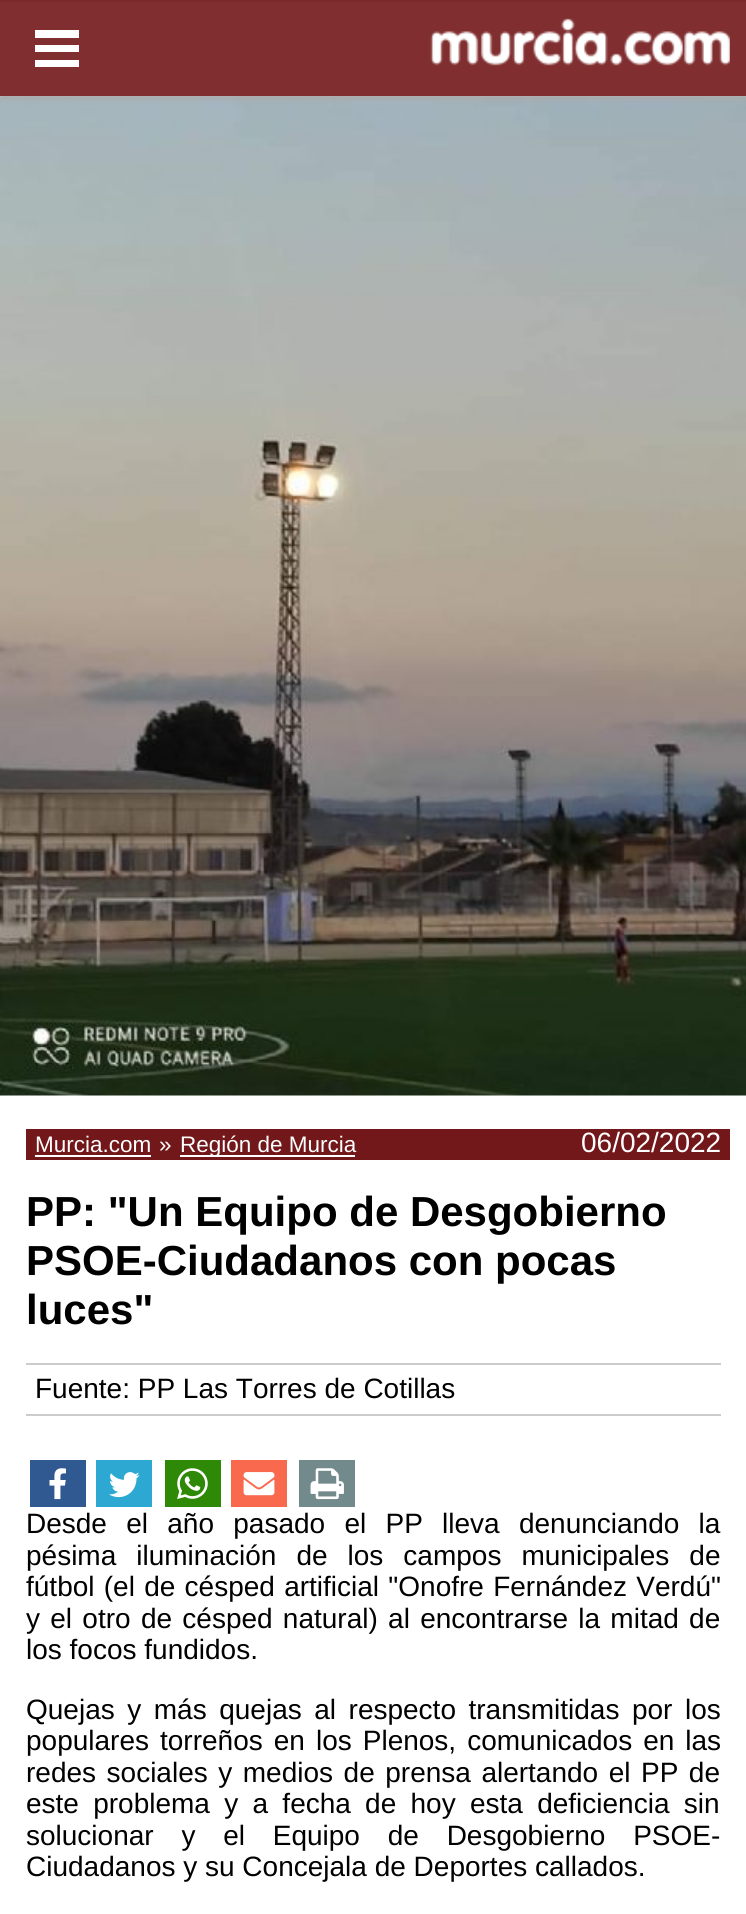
#include <cairo.h>
#include <math.h>
#include <stddef.h>

typedef struct { double x, y; const char *s; } line_t;

static void ink(cairo_t *ctx, unsigned color) {
    cairo_set_source_rgb(ctx, (color >> 16) / 255.0, (color >> 8 & 255) / 255.0, (color & 255) / 255.0);
}

static void write_spaced(cairo_t *ctx, double x, double y, const char *s, double letter, double word) {
    cairo_move_to(ctx, x, y);
    while (*s) {
        char ch[5] = {0};
        int n = 0;
        do ch[n++] = *s++; while ((*s & 0xC0) == 0x80);
        cairo_show_text(ctx, ch);
        cairo_rel_move_to(ctx, letter + word * (*ch == ' '), 0);
    }
}

static void round_path(cairo_t *ctx, double x, double y, double w, double h, double r) {
    cairo_new_sub_path(ctx);
    cairo_arc(ctx, x + w - r, y + h - r, r, 0, M_PI / 2);
    cairo_arc(ctx, x + r, y + h - r, r, M_PI / 2, M_PI);
    cairo_arc(ctx, x + r, y + r, r, M_PI, 1.5 * M_PI);
    cairo_arc(ctx, x + w - r, y + r, r, 1.5 * M_PI, 2 * M_PI);
    cairo_close_path(ctx);
}

static void blur_box(cairo_t *ctx, double x, double y, double w, double h, double r, double blur, double alpha) {
    cairo_push_group_with_content(ctx, CAIRO_CONTENT_ALPHA);
    cairo_set_operator(ctx, CAIRO_OPERATOR_SOURCE);
    for (int i = 15; i >= -15 && fmin(w, h) + blur * i / 3 > 0; i -= 2) {
        double e = blur * i / 6;
        cairo_set_source_rgba(ctx, 0, 0, 0, alpha * erfc((i - 1) / 8.5) / 2);
        round_path(ctx, x - e, y - e, w + 2 * e, h + 2 * e, fmax(0, fmin(r + e + blur * .6, fmin(w, h) / 2 + e)));
        cairo_fill(ctx);
    }
    cairo_pattern_t *soft = cairo_pop_group(ctx);
    cairo_mask(ctx, soft);
    cairo_pattern_destroy(soft);
}

static void paste(cairo_t *ctx, const char *path, double x, double y, double w, double h) {
    cairo_surface_t *image = cairo_image_surface_create_from_png(path);
    cairo_save(ctx);
    cairo_set_source_surface(ctx, image, x, y);
    cairo_rectangle(ctx, x, y, w, h);
    cairo_fill(ctx);
    cairo_restore(ctx);
    cairo_surface_destroy(image);
}

int main(void) {
    cairo_surface_t *surface = cairo_image_surface_create(CAIRO_FORMAT_RGB24, 746, 1914);
    cairo_t *ctx = cairo_create(surface);
    cairo_font_options_t *options = cairo_font_options_create();
    cairo_font_options_set_hint_metrics(options, CAIRO_HINT_METRICS_OFF);
    cairo_font_options_set_hint_style(options, CAIRO_HINT_STYLE_NONE);
    cairo_set_font_options(ctx, options);
    cairo_set_miter_limit(ctx, 4);
    ink(ctx, 0x802E30);
    cairo_paint(ctx);
    ink(ctx, 0x7B292C);
    cairo_rectangle(ctx, 0, 0, 746, 2);
    cairo_fill(ctx);
    ink(ctx, 0xFFFFFF);
    cairo_rectangle(ctx, 0, 96, 746, 1818);
    cairo_fill(ctx);
    paste(ctx, "media/2.png", 0, 96, 746, 1000);
    cairo_save(ctx);
    cairo_rectangle(ctx, 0, 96, 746, 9);
    cairo_clip(ctx);
    ink(ctx, 0xAAAAAA);
    blur_box(ctx, 0, 4, 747, 96, 0, 2.5, 0.9);
    cairo_restore(ctx);
    paste(ctx, "media/1.png", 430, 18, 300, 48);
    ink(ctx, 0xFEFEFE);
    cairo_set_fill_rule(ctx, CAIRO_FILL_RULE_EVEN_ODD);
    cairo_new_path(ctx);
    cairo_move_to(ctx, 79, 38);
    cairo_line_to(ctx, 35, 38);
    cairo_line_to(ctx, 35, 30);
    cairo_line_to(ctx, 79, 30);
    cairo_close_path(ctx);
    cairo_move_to(ctx, 79, 52);
    cairo_line_to(ctx, 35, 52);
    cairo_line_to(ctx, 35, 45);
    cairo_line_to(ctx, 79, 45);
    cairo_close_path(ctx);
    cairo_move_to(ctx, 35, 67);
    cairo_line_to(ctx, 79, 67);
    cairo_line_to(ctx, 79, 60);
    cairo_line_to(ctx, 35, 60);
    cairo_close_path(ctx);
    cairo_fill(ctx);
    ink(ctx, 0x72171A);
    cairo_rectangle(ctx, 26, 1129, 704, 31);
    cairo_fill(ctx);
    cairo_select_font_face(ctx, "Liberation Sans", CAIRO_FONT_SLANT_NORMAL, CAIRO_FONT_WEIGHT_NORMAL);
    cairo_set_font_size(ctx, 22.5);
    ink(ctx, 0xFFFFFF);
    cairo_move_to(ctx, 35, 1152);
    cairo_show_text(ctx, "Murcia.com");
    cairo_rectangle(ctx, 35, 1155, 116, 2);
    cairo_fill(ctx);
    cairo_move_to(ctx, 159, 1152);
    cairo_show_text(ctx, "»");
    cairo_rectangle(ctx, 180, 1155, 175, 2);
    cairo_fill(ctx);
    cairo_move_to(ctx, 180, 1152);
    cairo_show_text(ctx, "Región de Murcia");
    cairo_set_font_size(ctx, 28);
    cairo_move_to(ctx, 581, 1152);
    cairo_show_text(ctx, "06/02/2022");
    cairo_select_font_face(ctx, "Liberation Sans", CAIRO_FONT_SLANT_NORMAL, CAIRO_FONT_WEIGHT_BOLD);
    cairo_set_font_size(ctx, 42);
    ink(ctx, 0x000000);
    {
        static const line_t items[] = {
            {26, 1226, "PP: \"Un Equipo de Desgobierno"},
            {26, 1275, "PSOE-Ciudadanos con pocas"},
            {26, 1324, "luces\""},
        };
        for (size_t i = 0; i < sizeof items / sizeof *items; i++) {
            cairo_move_to(ctx, items[i].x, items[i].y);
            cairo_show_text(ctx, items[i].s);
        }
    }
    ink(ctx, 0xCCCCCC);
    cairo_rectangle(ctx, 26, 1363, 695, 2);
    cairo_fill(ctx);
    cairo_rectangle(ctx, 26, 1414, 695, 2);
    cairo_fill(ctx);
    cairo_select_font_face(ctx, "Liberation Sans", CAIRO_FONT_SLANT_NORMAL, CAIRO_FONT_WEIGHT_NORMAL);
    cairo_set_font_size(ctx, 28);
    ink(ctx, 0x000000);
    cairo_move_to(ctx, 35, 1398);
    cairo_show_text(ctx, "Fuente: PP Las Torres de Cotillas");
    ink(ctx, 0x305891);
    cairo_rectangle(ctx, 30, 1460, 56, 47);
    cairo_fill(ctx);
    paste(ctx, "media/3.png", 49, 1468, 17, 32);
    ink(ctx, 0x2CA8D2);
    cairo_rectangle(ctx, 96, 1460, 56, 47);
    cairo_fill(ctx);
    paste(ctx, "media/4.png", 109, 1472, 31, 26);
    ink(ctx, 0x2E8A06);
    cairo_rectangle(ctx, 165, 1460, 56, 47);
    cairo_fill(ctx);
    paste(ctx, "media/5.png", 177, 1468, 31, 31);
    ink(ctx, 0xF8694D);
    cairo_rectangle(ctx, 231, 1460, 56, 47);
    cairo_fill(ctx);
    paste(ctx, "media/6.png", 243, 1472, 32, 24);
    ink(ctx, 0x738A8D);
    cairo_rectangle(ctx, 299, 1460, 56, 47);
    cairo_fill(ctx);
    paste(ctx, "media/7.png", 310, 1468, 34, 32);
    ink(ctx, 0x000000);
    write_spaced(ctx, 26, 1533, "Desde el año pasado el PP lleva denunciando la", 0, 11.5);
    write_spaced(ctx, 26, 1565, "pésima iluminación de los campos municipales de", 0, 12.25);
    write_spaced(ctx, 26, 1596, "fútbol (el de césped artificial \"Onofre Fernández Verdú\"", 0, 1.5);
    write_spaced(ctx, 26, 1628, "y el otro de césped natural) al encontrarse la mitad de", 0, 2.5);
    cairo_move_to(ctx, 26, 1659);
    cairo_show_text(ctx, "los focos fundidos.");
    write_spaced(ctx, 26, 1719, "Quejas y más quejas al respecto transmitidas por los", 0, 4.75);
    write_spaced(ctx, 26, 1750, "populares torreños en los Plenos, comunicados en las", 0, 3.25);
    write_spaced(ctx, 26, 1782, "redes sociales y medios de prensa alertando el PP de", 0, 2.75);
    write_spaced(ctx, 26, 1813, "este problema y a fecha de hoy esta deficiencia sin", 0, 6.5);
    write_spaced(ctx, 26, 1845, "solucionar y el Equipo de Desgobierno PSOE-", 0, 20);
    cairo_move_to(ctx, 26, 1876);
    cairo_show_text(ctx, "Ciudadanos y su Concejala de Deportes callados.");
    cairo_surface_write_to_png(surface, "image.png");
    cairo_font_options_destroy(options);
    cairo_destroy(ctx);
    cairo_surface_destroy(surface);
    return 0;
}
